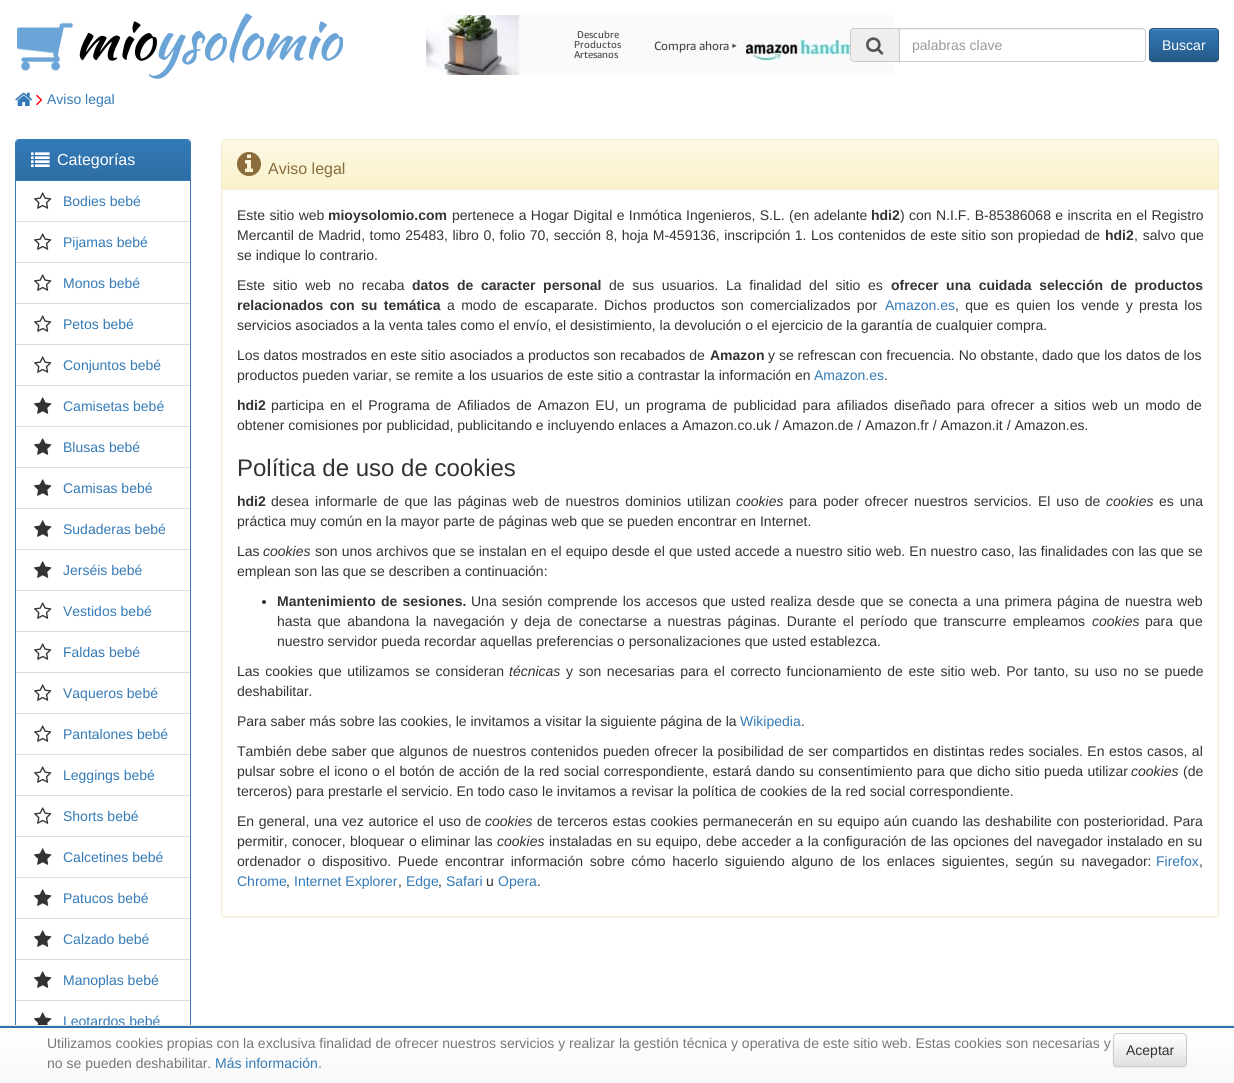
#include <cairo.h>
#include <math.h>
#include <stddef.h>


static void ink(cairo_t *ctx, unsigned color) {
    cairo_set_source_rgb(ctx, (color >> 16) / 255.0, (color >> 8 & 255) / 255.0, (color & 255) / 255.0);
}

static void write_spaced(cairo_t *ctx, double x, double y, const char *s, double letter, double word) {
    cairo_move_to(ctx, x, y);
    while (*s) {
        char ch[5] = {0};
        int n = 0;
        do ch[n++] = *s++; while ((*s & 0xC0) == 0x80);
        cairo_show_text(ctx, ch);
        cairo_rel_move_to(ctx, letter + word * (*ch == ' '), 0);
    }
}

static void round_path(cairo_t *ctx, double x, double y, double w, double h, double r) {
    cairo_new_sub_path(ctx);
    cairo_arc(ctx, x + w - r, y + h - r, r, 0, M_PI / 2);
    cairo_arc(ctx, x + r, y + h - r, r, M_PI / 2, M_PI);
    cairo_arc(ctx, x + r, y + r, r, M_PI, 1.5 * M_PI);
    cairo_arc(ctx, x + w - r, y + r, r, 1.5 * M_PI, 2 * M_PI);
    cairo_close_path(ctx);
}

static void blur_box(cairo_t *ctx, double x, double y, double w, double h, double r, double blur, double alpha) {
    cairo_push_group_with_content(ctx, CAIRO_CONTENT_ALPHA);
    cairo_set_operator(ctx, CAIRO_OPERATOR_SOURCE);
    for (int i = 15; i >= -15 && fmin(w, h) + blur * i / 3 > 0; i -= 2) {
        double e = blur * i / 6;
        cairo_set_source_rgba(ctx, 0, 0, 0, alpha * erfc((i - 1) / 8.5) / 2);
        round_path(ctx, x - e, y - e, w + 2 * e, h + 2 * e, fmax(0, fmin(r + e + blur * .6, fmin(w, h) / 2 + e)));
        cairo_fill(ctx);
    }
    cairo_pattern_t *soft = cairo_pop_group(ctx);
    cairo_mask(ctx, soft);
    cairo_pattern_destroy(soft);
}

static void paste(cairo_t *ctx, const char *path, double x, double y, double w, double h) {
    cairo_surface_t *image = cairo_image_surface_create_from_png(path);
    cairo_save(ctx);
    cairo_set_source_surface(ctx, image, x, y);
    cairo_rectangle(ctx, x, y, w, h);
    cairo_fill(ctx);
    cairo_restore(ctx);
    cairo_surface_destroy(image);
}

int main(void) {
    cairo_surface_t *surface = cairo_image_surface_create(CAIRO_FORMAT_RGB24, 1234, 1083);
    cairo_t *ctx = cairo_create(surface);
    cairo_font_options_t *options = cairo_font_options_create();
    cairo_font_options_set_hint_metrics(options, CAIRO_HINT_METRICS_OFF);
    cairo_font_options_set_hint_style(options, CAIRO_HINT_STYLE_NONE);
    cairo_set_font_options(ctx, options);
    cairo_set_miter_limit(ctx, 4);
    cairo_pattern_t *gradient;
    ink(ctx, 0xFFFFFF);
    cairo_paint(ctx);
    paste(ctx, "media/1.png", 16, 22, 57, 49);
    cairo_select_font_face(ctx, "Kaushan Script", CAIRO_FONT_SLANT_NORMAL, CAIRO_FONT_WEIGHT_NORMAL);
    cairo_set_font_size(ctx, 55);
    ink(ctx, 0x000000);
    cairo_move_to(ctx, 75, 59);
    cairo_show_text(ctx, "mio");
    ink(ctx, 0x6BA4D6);
    cairo_move_to(ctx, 154, 59);
    cairo_show_text(ctx, "ysolomio");
    paste(ctx, "media/2.png", 426, 15, 468, 60);
    ink(ctx, 0xEEEEEE);
    cairo_new_path(ctx);
    cairo_move_to(ctx, 854, 28);
    cairo_line_to(ctx, 899, 28);
    cairo_line_to(ctx, 899, 62);
    cairo_line_to(ctx, 854, 62);
    cairo_curve_to(ctx, 852, 62, 850, 60, 850, 58);
    cairo_line_to(ctx, 850, 32);
    cairo_curve_to(ctx, 850, 30, 852, 28, 854, 28);
    cairo_close_path(ctx);
    cairo_fill(ctx);
    ink(ctx, 0xCCCCCC);
    cairo_set_fill_rule(ctx, CAIRO_FILL_RULE_EVEN_ODD);
    cairo_new_path(ctx);
    cairo_move_to(ctx, 854, 28);
    cairo_line_to(ctx, 899, 28);
    cairo_line_to(ctx, 899, 62);
    cairo_line_to(ctx, 854, 62);
    cairo_curve_to(ctx, 852, 62, 850, 60, 850, 58);
    cairo_line_to(ctx, 850, 32);
    cairo_curve_to(ctx, 850, 30, 852, 28, 854, 28);
    cairo_close_path(ctx);
    cairo_move_to(ctx, 854, 29);
    cairo_line_to(ctx, 899, 29);
    cairo_line_to(ctx, 899, 61);
    cairo_line_to(ctx, 854, 61);
    cairo_curve_to(ctx, 852, 61, 851, 60, 851, 58);
    cairo_line_to(ctx, 851, 32);
    cairo_curve_to(ctx, 851, 30, 852, 29, 854, 29);
    cairo_close_path(ctx);
    cairo_fill(ctx);
    paste(ctx, "media/3.png", 866, 37, 18, 18);
    ink(ctx, 0xECECEC);
    cairo_set_fill_rule(ctx, CAIRO_FILL_RULE_WINDING);
    cairo_new_path(ctx);
    cairo_move_to(ctx, 900, 30);
    cairo_line_to(ctx, 1142, 30);
    cairo_curve_to(ctx, 1144, 30, 1145, 31, 1145, 33);
    cairo_curve_to(ctx, 1145, 31, 1144, 29, 1142, 29);
    cairo_line_to(ctx, 900, 29);
    cairo_close_path(ctx);
    cairo_fill(ctx);
    cairo_new_path(ctx);
    cairo_move_to(ctx, 899.5, 28.5);
    cairo_line_to(ctx, 1142, 28.5);
    cairo_curve_to(ctx, 1144, 28.5, 1145.5, 30, 1145.5, 32);
    cairo_line_to(ctx, 1145.5, 58);
    cairo_curve_to(ctx, 1145.5, 60, 1144, 61.5, 1142, 61.5);
    cairo_line_to(ctx, 899.5, 61.5);
    cairo_close_path(ctx);
    ink(ctx, 0xCCCCCC);
    cairo_set_line_width(ctx, 1);
    cairo_stroke(ctx);
    cairo_select_font_face(ctx, "Liberation Sans", CAIRO_FONT_SLANT_NORMAL, CAIRO_FONT_WEIGHT_NORMAL);
    cairo_set_font_size(ctx, 14);
    ink(ctx, 0x999999);
    cairo_move_to(ctx, 912, 50);
    cairo_show_text(ctx, "palabras clave");
    ink(ctx, 0x000000);
    blur_box(ctx, 1149, 29, 70, 34, 4, 0.5, 0.07);
    cairo_save(ctx);
    round_path(ctx, 1149, 28, 70, 34, 4);
    cairo_clip(ctx);
    gradient = cairo_pattern_create_linear(1184, 29, 1184, 61);
    cairo_pattern_add_color_stop_rgba(gradient, 0, 0.2, 0.478, 0.718, 1);
    cairo_pattern_add_color_stop_rgba(gradient, 1, 0.149, 0.353, 0.533, 1);
    cairo_set_source(ctx, gradient);
    cairo_pattern_destroy(gradient);
    cairo_rectangle(ctx, 1149, 29, 70, 32);
    cairo_fill(ctx);
    cairo_restore(ctx);
    ink(ctx, 0x528EC1);
    cairo_new_path(ctx);
    cairo_move_to(ctx, 1153, 30);
    cairo_line_to(ctx, 1215, 30);
    cairo_curve_to(ctx, 1217, 30, 1218, 31, 1218, 33);
    cairo_curve_to(ctx, 1218, 26, 1209, 29, 1205, 29);
    cairo_line_to(ctx, 1163, 29);
    cairo_curve_to(ctx, 1159, 29, 1150, 26, 1150, 33);
    cairo_curve_to(ctx, 1150, 31, 1151, 30, 1153, 30);
    cairo_close_path(ctx);
    cairo_fill(ctx);
    round_path(ctx, 1149.5, 28.5, 69, 33, 3.5);
    ink(ctx, 0x245580);
    cairo_stroke(ctx);
    ink(ctx, 0xFFFFFF);
    cairo_move_to(ctx, 1162, 50);
    cairo_show_text(ctx, "Buscar");
    paste(ctx, "media/4.png", 15, 92, 17, 14);
    paste(ctx, "media/5.png", 36, 94, 7, 12);
    ink(ctx, 0x337AB7);
    cairo_move_to(ctx, 47, 104);
    cairo_show_text(ctx, "Aviso legal");
    round_path(ctx, 15.5, 139.5, 175, 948, 3.5);
    cairo_stroke(ctx);
    cairo_new_path(ctx);
    cairo_move_to(ctx, 19, 140);
    cairo_line_to(ctx, 187, 140);
    cairo_curve_to(ctx, 188.5, 140, 190, 141.5, 190, 143);
    cairo_line_to(ctx, 190, 181);
    cairo_line_to(ctx, 16, 181);
    cairo_line_to(ctx, 16, 143);
    cairo_curve_to(ctx, 16, 141.5, 17.5, 140, 19, 140);
    cairo_close_path(ctx);
    cairo_fill(ctx);
    gradient = cairo_pattern_create_linear(103, 140, 103, 180);
    cairo_pattern_add_color_stop_rgba(gradient, 0, 0.2, 0.478, 0.718, 1);
    cairo_pattern_add_color_stop_rgba(gradient, 1, 0.18, 0.427, 0.643, 1);
    cairo_set_source(ctx, gradient);
    cairo_pattern_destroy(gradient);
    cairo_new_path(ctx);
    cairo_move_to(ctx, 19, 140);
    cairo_line_to(ctx, 187, 140);
    cairo_curve_to(ctx, 188.5, 140, 190, 141.5, 190, 143);
    cairo_line_to(ctx, 190, 180);
    cairo_line_to(ctx, 16, 180);
    cairo_line_to(ctx, 16, 143);
    cairo_curve_to(ctx, 16, 141.5, 17.5, 140, 19, 140);
    cairo_close_path(ctx);
    cairo_fill(ctx);
    paste(ctx, "media/6.png", 31, 152, 19, 15);
    cairo_set_font_size(ctx, 16);
    ink(ctx, 0xFFFFFF);
    cairo_move_to(ctx, 57, 165);
    cairo_show_text(ctx, "Categorías");
    ink(ctx, 0xDDDDDD);
    cairo_rectangle(ctx, 16, 221, 174, 1);
    cairo_fill(ctx);
    paste(ctx, "media/7.png", 34, 192, 18, 17);
    cairo_set_font_size(ctx, 14);
    ink(ctx, 0x337AB7);
    cairo_move_to(ctx, 63, 206);
    cairo_show_text(ctx, "Bodies bebé");
    ink(ctx, 0xDDDDDD);
    cairo_rectangle(ctx, 16, 262, 174, 1);
    cairo_fill(ctx);
    paste(ctx, "media/7.png", 34, 233, 18, 17);
    ink(ctx, 0x337AB7);
    cairo_move_to(ctx, 63, 247);
    cairo_show_text(ctx, "Pijamas bebé");
    ink(ctx, 0xDDDDDD);
    cairo_rectangle(ctx, 16, 303, 174, 1);
    cairo_fill(ctx);
    paste(ctx, "media/7.png", 34, 274, 18, 17);
    ink(ctx, 0x337AB7);
    cairo_move_to(ctx, 63, 288);
    cairo_show_text(ctx, "Monos bebé");
    ink(ctx, 0xDDDDDD);
    cairo_rectangle(ctx, 16, 344, 174, 1);
    cairo_fill(ctx);
    paste(ctx, "media/7.png", 34, 315, 18, 17);
    ink(ctx, 0x337AB7);
    cairo_move_to(ctx, 63, 329);
    cairo_show_text(ctx, "Petos bebé");
    ink(ctx, 0xDDDDDD);
    cairo_rectangle(ctx, 16, 385, 174, 1);
    cairo_fill(ctx);
    paste(ctx, "media/7.png", 34, 356, 18, 17);
    ink(ctx, 0x337AB7);
    cairo_move_to(ctx, 63, 370);
    cairo_show_text(ctx, "Conjuntos bebé");
    ink(ctx, 0xDDDDDD);
    cairo_rectangle(ctx, 16, 426, 174, 1);
    cairo_fill(ctx);
    paste(ctx, "media/8.png", 34, 397, 18, 17);
    ink(ctx, 0x337AB7);
    cairo_move_to(ctx, 63, 411);
    cairo_show_text(ctx, "Camisetas bebé");
    ink(ctx, 0xDDDDDD);
    cairo_rectangle(ctx, 16, 467, 174, 1);
    cairo_fill(ctx);
    paste(ctx, "media/8.png", 34, 438, 18, 17);
    ink(ctx, 0x337AB7);
    cairo_move_to(ctx, 63, 452);
    cairo_show_text(ctx, "Blusas bebé");
    ink(ctx, 0xDDDDDD);
    cairo_rectangle(ctx, 16, 508, 174, 1);
    cairo_fill(ctx);
    paste(ctx, "media/8.png", 34, 479, 18, 17);
    ink(ctx, 0x337AB7);
    cairo_move_to(ctx, 63, 493);
    cairo_show_text(ctx, "Camisas bebé");
    ink(ctx, 0xDDDDDD);
    cairo_rectangle(ctx, 16, 549, 174, 1);
    cairo_fill(ctx);
    paste(ctx, "media/8.png", 34, 520, 18, 17);
    ink(ctx, 0x337AB7);
    cairo_move_to(ctx, 63, 534);
    cairo_show_text(ctx, "Sudaderas bebé");
    ink(ctx, 0xDDDDDD);
    cairo_rectangle(ctx, 16, 590, 174, 1);
    cairo_fill(ctx);
    paste(ctx, "media/8.png", 34, 561, 18, 17);
    ink(ctx, 0x337AB7);
    cairo_move_to(ctx, 63, 575);
    cairo_show_text(ctx, "Jerséis bebé");
    ink(ctx, 0xDDDDDD);
    cairo_rectangle(ctx, 16, 631, 174, 1);
    cairo_fill(ctx);
    paste(ctx, "media/7.png", 34, 602, 18, 17);
    ink(ctx, 0x337AB7);
    cairo_move_to(ctx, 63, 616);
    cairo_show_text(ctx, "Vestidos bebé");
    ink(ctx, 0xDDDDDD);
    cairo_rectangle(ctx, 16, 672, 174, 1);
    cairo_fill(ctx);
    paste(ctx, "media/7.png", 34, 643, 18, 17);
    ink(ctx, 0x337AB7);
    cairo_move_to(ctx, 63, 657);
    cairo_show_text(ctx, "Faldas bebé");
    ink(ctx, 0xDDDDDD);
    cairo_rectangle(ctx, 16, 713, 174, 1);
    cairo_fill(ctx);
    paste(ctx, "media/7.png", 34, 684, 18, 17);
    ink(ctx, 0x337AB7);
    cairo_move_to(ctx, 63, 698);
    cairo_show_text(ctx, "Vaqueros bebé");
    ink(ctx, 0xDDDDDD);
    cairo_rectangle(ctx, 16, 754, 174, 1);
    cairo_fill(ctx);
    paste(ctx, "media/7.png", 34, 725, 18, 17);
    ink(ctx, 0x337AB7);
    cairo_move_to(ctx, 63, 739);
    cairo_show_text(ctx, "Pantalones bebé");
    ink(ctx, 0xDDDDDD);
    cairo_rectangle(ctx, 16, 795, 174, 1);
    cairo_fill(ctx);
    paste(ctx, "media/7.png", 34, 766, 18, 17);
    ink(ctx, 0x337AB7);
    cairo_move_to(ctx, 63, 780);
    cairo_show_text(ctx, "Leggings bebé");
    ink(ctx, 0xDDDDDD);
    cairo_rectangle(ctx, 16, 836, 174, 1);
    cairo_fill(ctx);
    paste(ctx, "media/7.png", 34, 807, 18, 17);
    ink(ctx, 0x337AB7);
    cairo_move_to(ctx, 63, 821);
    cairo_show_text(ctx, "Shorts bebé");
    ink(ctx, 0xDDDDDD);
    cairo_rectangle(ctx, 16, 877, 174, 1);
    cairo_fill(ctx);
    paste(ctx, "media/8.png", 34, 848, 18, 17);
    ink(ctx, 0x337AB7);
    cairo_move_to(ctx, 63, 862);
    cairo_show_text(ctx, "Calcetines bebé");
    ink(ctx, 0xDDDDDD);
    cairo_rectangle(ctx, 16, 918, 174, 1);
    cairo_fill(ctx);
    paste(ctx, "media/8.png", 34, 889, 18, 17);
    ink(ctx, 0x337AB7);
    cairo_move_to(ctx, 63, 903);
    cairo_show_text(ctx, "Patucos bebé");
    ink(ctx, 0xDDDDDD);
    cairo_rectangle(ctx, 16, 959, 174, 1);
    cairo_fill(ctx);
    paste(ctx, "media/8.png", 34, 930, 18, 17);
    ink(ctx, 0x337AB7);
    cairo_move_to(ctx, 63, 944);
    cairo_show_text(ctx, "Calzado bebé");
    ink(ctx, 0xDDDDDD);
    cairo_rectangle(ctx, 16, 1000, 174, 1);
    cairo_fill(ctx);
    paste(ctx, "media/8.png", 34, 971, 18, 17);
    ink(ctx, 0x337AB7);
    cairo_move_to(ctx, 63, 985);
    cairo_show_text(ctx, "Manoplas bebé");
    paste(ctx, "media/9.png", 34, 1012, 18, 13);
    cairo_move_to(ctx, 63, 1026);
    cairo_show_text(ctx, "Leotardos bebé");
    ink(ctx, 0x000000);
    blur_box(ctx, 221, 140, 998, 778, 4, 1, 0.05);
    ink(ctx, 0xFFFFFF);
    round_path(ctx, 221.5, 139.5, 997, 777, 3.5);
    cairo_fill_preserve(ctx);
    ink(ctx, 0xFAEBCC);
    cairo_stroke(ctx);
    gradient = cairo_pattern_create_linear(720, 140, 720, 189);
    cairo_pattern_add_color_stop_rgba(gradient, 0, 0.988, 0.973, 0.89, 1);
    cairo_pattern_add_color_stop_rgba(gradient, 1, 0.98, 0.949, 0.8, 1);
    cairo_set_source(ctx, gradient);
    cairo_pattern_destroy(gradient);
    cairo_new_path(ctx);
    cairo_move_to(ctx, 225, 140);
    cairo_line_to(ctx, 1215, 140);
    cairo_curve_to(ctx, 1216.5, 140, 1218, 141.5, 1218, 143);
    cairo_line_to(ctx, 1218, 189);
    cairo_line_to(ctx, 222, 189);
    cairo_line_to(ctx, 222, 143);
    cairo_curve_to(ctx, 222, 141.5, 223.5, 140, 225, 140);
    cairo_close_path(ctx);
    cairo_fill(ctx);
    ink(ctx, 0xFAEBCC);
    cairo_rectangle(ctx, 222, 189, 996, 1);
    cairo_fill(ctx);
    paste(ctx, "media/10.png", 237, 152, 24, 24);
    cairo_set_font_size(ctx, 16);
    ink(ctx, 0x8A6D3B);
    cairo_move_to(ctx, 268, 174);
    cairo_show_text(ctx, "Aviso legal");
    cairo_set_font_size(ctx, 14);
    ink(ctx, 0x333333);
    write_spaced(ctx, 237, 220, "Este sitio web", 0, 0.5);
    cairo_select_font_face(ctx, "Liberation Sans", CAIRO_FONT_SLANT_NORMAL, CAIRO_FONT_WEIGHT_BOLD);
    cairo_move_to(ctx, 328, 220);
    cairo_show_text(ctx, "mioysolomio.com");
    cairo_select_font_face(ctx, "Liberation Sans", CAIRO_FONT_SLANT_NORMAL, CAIRO_FONT_WEIGHT_NORMAL);
    write_spaced(ctx, 452, 220, "pertenece a Hogar Digital e Inmótica Ingenieros, S.L. (en adelante", 0, 0.5);
    cairo_select_font_face(ctx, "Liberation Sans", CAIRO_FONT_SLANT_NORMAL, CAIRO_FONT_WEIGHT_BOLD);
    cairo_move_to(ctx, 871, 220);
    cairo_show_text(ctx, "hdi2");
    cairo_select_font_face(ctx, "Liberation Sans", CAIRO_FONT_SLANT_NORMAL, CAIRO_FONT_WEIGHT_NORMAL);
    write_spaced(ctx, 900, 220, ") con N.I.F. B-85386068 e inscrita en el Registro", 0, 0.5);
    write_spaced(ctx, 237, 240, "Mercantil de Madrid, tomo 25483, libro 0, folio 70, sección 8, hoja M-459136, inscripción 1. Los contenidos de este sitio son propiedad de", 0, 0.6);
    cairo_select_font_face(ctx, "Liberation Sans", CAIRO_FONT_SLANT_NORMAL, CAIRO_FONT_WEIGHT_BOLD);
    cairo_move_to(ctx, 1105, 240);
    cairo_show_text(ctx, "hdi2");
    cairo_select_font_face(ctx, "Liberation Sans", CAIRO_FONT_SLANT_NORMAL, CAIRO_FONT_WEIGHT_NORMAL);
    write_spaced(ctx, 1134, 240, ", salvo que", 0, 1);
    cairo_move_to(ctx, 237, 260);
    cairo_show_text(ctx, "se indique lo contrario.");
    write_spaced(ctx, 237, 290, "Este sitio web no recaba", 0, 3.75);
    cairo_select_font_face(ctx, "Liberation Sans", CAIRO_FONT_SLANT_NORMAL, CAIRO_FONT_WEIGHT_BOLD);
    write_spaced(ctx, 412, 290, "datos de caracter personal", 0, 3.75);
    cairo_select_font_face(ctx, "Liberation Sans", CAIRO_FONT_SLANT_NORMAL, CAIRO_FONT_WEIGHT_NORMAL);
    write_spaced(ctx, 609, 290, "de sus usuarios. La finalidad del sitio es", 0, 3.75);
    cairo_select_font_face(ctx, "Liberation Sans", CAIRO_FONT_SLANT_NORMAL, CAIRO_FONT_WEIGHT_BOLD);
    write_spaced(ctx, 891, 290, "ofrecer una cuidada selección de productos", 0, 3.75);
    write_spaced(ctx, 237, 310, "relacionados con su temática", 0, 2.5);
    cairo_select_font_face(ctx, "Liberation Sans", CAIRO_FONT_SLANT_NORMAL, CAIRO_FONT_WEIGHT_NORMAL);
    write_spaced(ctx, 447, 310, "a modo de escaparate. Dichos productos son comercializados por", 0, 2.5);
    ink(ctx, 0x337AB7);
    cairo_move_to(ctx, 885, 310);
    cairo_show_text(ctx, "Amazon.es");
    ink(ctx, 0x333333);
    write_spaced(ctx, 955, 310, ", que es quien los vende y presta los", 0, 2.5);
    cairo_move_to(ctx, 237, 330);
    cairo_show_text(ctx, "servicios asociados a la venta tales como el envío, el desistimiento, la devolución o el ejercicio de la garantía de cualquier compra.");
    cairo_move_to(ctx, 237, 360);
    cairo_show_text(ctx, "Los datos mostrados en este sitio asociados a productos son recabados de");
    cairo_select_font_face(ctx, "Liberation Sans", CAIRO_FONT_SLANT_NORMAL, CAIRO_FONT_WEIGHT_BOLD);
    cairo_move_to(ctx, 710, 360);
    cairo_show_text(ctx, "Amazon");
    cairo_select_font_face(ctx, "Liberation Sans", CAIRO_FONT_SLANT_NORMAL, CAIRO_FONT_WEIGHT_NORMAL);
    cairo_move_to(ctx, 768, 360);
    cairo_show_text(ctx, "y se refrescan con frecuencia. No obstante, dado que los datos de los");
    cairo_move_to(ctx, 237, 380);
    cairo_show_text(ctx, "productos pueden variar, se remite a los usuarios de este sitio a contrastar la información en");
    ink(ctx, 0x337AB7);
    cairo_move_to(ctx, 814, 380);
    cairo_show_text(ctx, "Amazon.es");
    ink(ctx, 0x333333);
    cairo_move_to(ctx, 884, 380);
    cairo_show_text(ctx, ".");
    cairo_select_font_face(ctx, "Liberation Sans", CAIRO_FONT_SLANT_NORMAL, CAIRO_FONT_WEIGHT_BOLD);
    cairo_move_to(ctx, 237, 410);
    cairo_show_text(ctx, "hdi2");
    cairo_select_font_face(ctx, "Liberation Sans", CAIRO_FONT_SLANT_NORMAL, CAIRO_FONT_WEIGHT_NORMAL);
    write_spaced(ctx, 271, 410, "participa en el Programa de Afiliados de Amazon EU, un programa de publicidad para afiliados diseñado para ofrecer a sitios web un modo de", 0, 2.1);
    cairo_move_to(ctx, 237, 430);
    cairo_show_text(ctx, "obtener comisiones por publicidad, publicitando e incluyendo enlaces a Amazon.co.uk / Amazon.de / Amazon.fr / Amazon.it / Amazon.es.");
    cairo_set_font_size(ctx, 24);
    cairo_move_to(ctx, 237, 476);
    cairo_show_text(ctx, "Política de uso de cookies");
    cairo_select_font_face(ctx, "Liberation Sans", CAIRO_FONT_SLANT_NORMAL, CAIRO_FONT_WEIGHT_BOLD);
    cairo_set_font_size(ctx, 14);
    cairo_move_to(ctx, 237, 506);
    cairo_show_text(ctx, "hdi2");
    cairo_select_font_face(ctx, "Liberation Sans", CAIRO_FONT_SLANT_NORMAL, CAIRO_FONT_WEIGHT_NORMAL);
    write_spaced(ctx, 271, 506, "desea informarle de que las páginas web de nuestros dominios utilizan", 0, 2);
    cairo_select_font_face(ctx, "Liberation Sans", CAIRO_FONT_SLANT_ITALIC, CAIRO_FONT_WEIGHT_NORMAL);
    cairo_move_to(ctx, 736, 506);
    cairo_show_text(ctx, "cookies");
    cairo_select_font_face(ctx, "Liberation Sans", CAIRO_FONT_SLANT_NORMAL, CAIRO_FONT_WEIGHT_NORMAL);
    write_spaced(ctx, 789, 506, "para poder ofrecer nuestros servicios. El uso de", 0, 2);
    cairo_select_font_face(ctx, "Liberation Sans", CAIRO_FONT_SLANT_ITALIC, CAIRO_FONT_WEIGHT_NORMAL);
    cairo_move_to(ctx, 1106, 506);
    cairo_show_text(ctx, "cookies");
    cairo_select_font_face(ctx, "Liberation Sans", CAIRO_FONT_SLANT_NORMAL, CAIRO_FONT_WEIGHT_NORMAL);
    write_spaced(ctx, 1159, 506, "es una", 0, 2);
    cairo_move_to(ctx, 237, 526);
    cairo_show_text(ctx, "práctica muy común en la mayor parte de páginas web que se pueden encontrar en Internet.");
    cairo_move_to(ctx, 237, 556);
    cairo_show_text(ctx, "Las");
    cairo_select_font_face(ctx, "Liberation Sans", CAIRO_FONT_SLANT_ITALIC, CAIRO_FONT_WEIGHT_NORMAL);
    cairo_move_to(ctx, 263, 556);
    cairo_show_text(ctx, "cookies");
    cairo_select_font_face(ctx, "Liberation Sans", CAIRO_FONT_SLANT_NORMAL, CAIRO_FONT_WEIGHT_NORMAL);
    write_spaced(ctx, 315, 556, "son unos archivos que se instalan en el equipo desde el que usted accede a nuestro sitio web. En nuestro caso, las finalidades con las que se", 0, 0.2);
    cairo_move_to(ctx, 237, 576);
    cairo_show_text(ctx, "emplean son las que se describen a continuación:");
    cairo_new_path(ctx);
    cairo_arc(ctx, 264, 602, 2, 0, 2 * M_PI);
    cairo_fill(ctx);
    cairo_select_font_face(ctx, "Liberation Sans", CAIRO_FONT_SLANT_NORMAL, CAIRO_FONT_WEIGHT_BOLD);
    write_spaced(ctx, 277, 606, "Mantenimiento de sesiones.", 0, 1.3);
    cairo_select_font_face(ctx, "Liberation Sans", CAIRO_FONT_SLANT_NORMAL, CAIRO_FONT_WEIGHT_NORMAL);
    write_spaced(ctx, 471, 606, "Una sesión comprende los accesos que usted realiza desde que se conecta a una primera página de nuestra web", 0, 1.3);
    write_spaced(ctx, 277, 626, "hasta que abandona la navegación y deja de conectarse a nuestras páginas. Durante el período que transcurre empleamos", 0, 2.4);
    cairo_select_font_face(ctx, "Liberation Sans", CAIRO_FONT_SLANT_ITALIC, CAIRO_FONT_WEIGHT_NORMAL);
    cairo_move_to(ctx, 1092, 626);
    cairo_show_text(ctx, "cookies");
    cairo_select_font_face(ctx, "Liberation Sans", CAIRO_FONT_SLANT_NORMAL, CAIRO_FONT_WEIGHT_NORMAL);
    write_spaced(ctx, 1145, 626, "para que", 0, 2.4);
    cairo_move_to(ctx, 277, 646);
    cairo_show_text(ctx, "nuestro servidor pueda recordar aquellas preferencias o personalizaciones que usted establezca.");
    write_spaced(ctx, 237, 676, "Las cookies que utilizamos se consideran", 0, 1.75);
    cairo_select_font_face(ctx, "Liberation Sans", CAIRO_FONT_SLANT_ITALIC, CAIRO_FONT_WEIGHT_NORMAL);
    cairo_move_to(ctx, 509, 676);
    cairo_show_text(ctx, "técnicas");
    cairo_select_font_face(ctx, "Liberation Sans", CAIRO_FONT_SLANT_NORMAL, CAIRO_FONT_WEIGHT_NORMAL);
    write_spaced(ctx, 566, 676, "y son necesarias para el correcto funcionamiento de este sitio web. Por tanto, su uso no se puede", 0, 1.75);
    cairo_move_to(ctx, 237, 696);
    cairo_show_text(ctx, "deshabilitar.");
    cairo_move_to(ctx, 237, 726);
    cairo_show_text(ctx, "Para saber más sobre las cookies, le invitamos a visitar la siguiente página de la");
    ink(ctx, 0x337AB7);
    cairo_move_to(ctx, 740, 726);
    cairo_show_text(ctx, "Wikipedia");
    ink(ctx, 0x333333);
    cairo_move_to(ctx, 801, 726);
    cairo_show_text(ctx, ".");
    write_spaced(ctx, 237, 756, "También debe saber que algunos de nuestros contenidos pueden ofrecer la posibilidad de ser compartidos en distintas redes sociales. En estos casos, al", 0, 0.6);
    write_spaced(ctx, 237, 776, "pulsar sobre el icono o el botón de acción de la red social correspondiente, estará dando su consentimiento para que dicho sitio pueda utilizar", 0, 0.5);
    cairo_select_font_face(ctx, "Liberation Sans", CAIRO_FONT_SLANT_ITALIC, CAIRO_FONT_WEIGHT_NORMAL);
    cairo_move_to(ctx, 1131, 776);
    cairo_show_text(ctx, "cookies");
    cairo_select_font_face(ctx, "Liberation Sans", CAIRO_FONT_SLANT_NORMAL, CAIRO_FONT_WEIGHT_NORMAL);
    cairo_move_to(ctx, 1183, 776);
    cairo_show_text(ctx, "(de");
    cairo_move_to(ctx, 237, 796);
    cairo_show_text(ctx, "terceros) para prestarle el servicio. En todo caso le invitamos a revisar la política de cookies de la red social correspondiente.");
    write_spaced(ctx, 237, 826, "En general, una vez autorice el uso de", 0, 0.75);
    cairo_select_font_face(ctx, "Liberation Sans", CAIRO_FONT_SLANT_ITALIC, CAIRO_FONT_WEIGHT_NORMAL);
    cairo_move_to(ctx, 485, 826);
    cairo_show_text(ctx, "cookies");
    cairo_select_font_face(ctx, "Liberation Sans", CAIRO_FONT_SLANT_NORMAL, CAIRO_FONT_WEIGHT_NORMAL);
    write_spaced(ctx, 537, 826, "de terceros estas cookies permanecerán en su equipo aún cuando las deshabilite con posterioridad. Para", 0, 0.75);
    write_spaced(ctx, 237, 846, "permitir, conocer, bloquear o eliminar las", 0, 0.5);
    cairo_select_font_face(ctx, "Liberation Sans", CAIRO_FONT_SLANT_ITALIC, CAIRO_FONT_WEIGHT_NORMAL);
    cairo_move_to(ctx, 497, 846);
    cairo_show_text(ctx, "cookies");
    cairo_select_font_face(ctx, "Liberation Sans", CAIRO_FONT_SLANT_NORMAL, CAIRO_FONT_WEIGHT_NORMAL);
    write_spaced(ctx, 549, 846, "instaladas en su equipo, debe acceder a la configuración de las opciones del navegador instalado en su", 0, 0.5);
    write_spaced(ctx, 237, 866, "ordenador o dispositivo. Puede encontrar información sobre cómo hacerlo siguiendo alguno de los enlaces siguientes, según su navegador:", 0, 2.75);
    ink(ctx, 0x337AB7);
    cairo_move_to(ctx, 1156, 866);
    cairo_show_text(ctx, "Firefox");
    ink(ctx, 0x333333);
    cairo_move_to(ctx, 1199, 866);
    cairo_show_text(ctx, ",");
    ink(ctx, 0x337AB7);
    cairo_move_to(ctx, 237, 886);
    cairo_show_text(ctx, "Chrome");
    ink(ctx, 0x333333);
    cairo_move_to(ctx, 286, 886);
    cairo_show_text(ctx, ",");
    ink(ctx, 0x337AB7);
    cairo_move_to(ctx, 294, 886);
    cairo_show_text(ctx, "Internet Explorer");
    ink(ctx, 0x333333);
    cairo_move_to(ctx, 398, 886);
    cairo_show_text(ctx, ",");
    ink(ctx, 0x337AB7);
    cairo_move_to(ctx, 406, 886);
    cairo_show_text(ctx, "Edge");
    ink(ctx, 0x333333);
    cairo_move_to(ctx, 438, 886);
    cairo_show_text(ctx, ",");
    ink(ctx, 0x337AB7);
    cairo_move_to(ctx, 446, 886);
    cairo_show_text(ctx, "Safari");
    ink(ctx, 0x333333);
    cairo_move_to(ctx, 486, 886);
    cairo_show_text(ctx, "u");
    ink(ctx, 0x337AB7);
    cairo_move_to(ctx, 498, 886);
    cairo_show_text(ctx, "Opera");
    ink(ctx, 0x333333);
    cairo_move_to(ctx, 537, 886);
    cairo_show_text(ctx, ".");
    gradient = cairo_pattern_create_linear(617, 1026, 617, 1083);
    cairo_pattern_add_color_stop_rgba(gradient, 0, 1, 1, 1, 1);
    cairo_pattern_add_color_stop_rgba(gradient, 1, 0.973, 0.973, 0.973, 1);
    cairo_set_source(ctx, gradient);
    cairo_pattern_destroy(gradient);
    cairo_rectangle(ctx, 0, 1028, 1234, 55);
    cairo_fill(ctx);
    ink(ctx, 0xE7E7E7);
    cairo_rectangle(ctx, 0, 1025, 1234, 1);
    cairo_fill(ctx);
    ink(ctx, 0x3073AD);
    cairo_rectangle(ctx, 0, 1026, 1234, 2);
    cairo_fill(ctx);
    ink(ctx, 0x000000);
    blur_box(ctx, 1113, 1034, 74, 34, 4, 0.5, 0.07);
    ink(ctx, 0x777777);
    cairo_move_to(ctx, 47, 1048);
    cairo_show_text(ctx, "Utilizamos cookies propias con la exclusiva finalidad de ofrecer nuestros servicios y realizar la gestión técnica y operativa de este sitio web. Estas cookies son necesarias y");
    cairo_move_to(ctx, 47, 1068);
    cairo_show_text(ctx, "no se pueden deshabilitar.");
    ink(ctx, 0x337AB7);
    cairo_move_to(ctx, 215, 1068);
    cairo_show_text(ctx, "Más información");
    ink(ctx, 0x777777);
    cairo_move_to(ctx, 318, 1068);
    cairo_show_text(ctx, ".");
    cairo_save(ctx);
    round_path(ctx, 1113, 1033, 74, 34, 4);
    cairo_clip(ctx);
    gradient = cairo_pattern_create_linear(1150, 1034, 1150, 1066);
    cairo_pattern_add_color_stop_rgba(gradient, 0, 1, 1, 1, 1);
    cairo_pattern_add_color_stop_rgba(gradient, 1, 0.878, 0.878, 0.878, 1);
    cairo_set_source(ctx, gradient);
    cairo_pattern_destroy(gradient);
    cairo_rectangle(ctx, 1113, 1034, 74, 32);
    cairo_fill(ctx);
    cairo_restore(ctx);
    round_path(ctx, 1113.5, 1033.5, 73, 33, 3.5);
    ink(ctx, 0xCCCCCC);
    cairo_stroke(ctx);
    ink(ctx, 0x333333);
    cairo_move_to(ctx, 1126, 1055);
    cairo_show_text(ctx, "Aceptar");
    cairo_surface_write_to_png(surface, "image.png");
    cairo_font_options_destroy(options);
    cairo_destroy(ctx);
    cairo_surface_destroy(surface);
    return 0;
}
